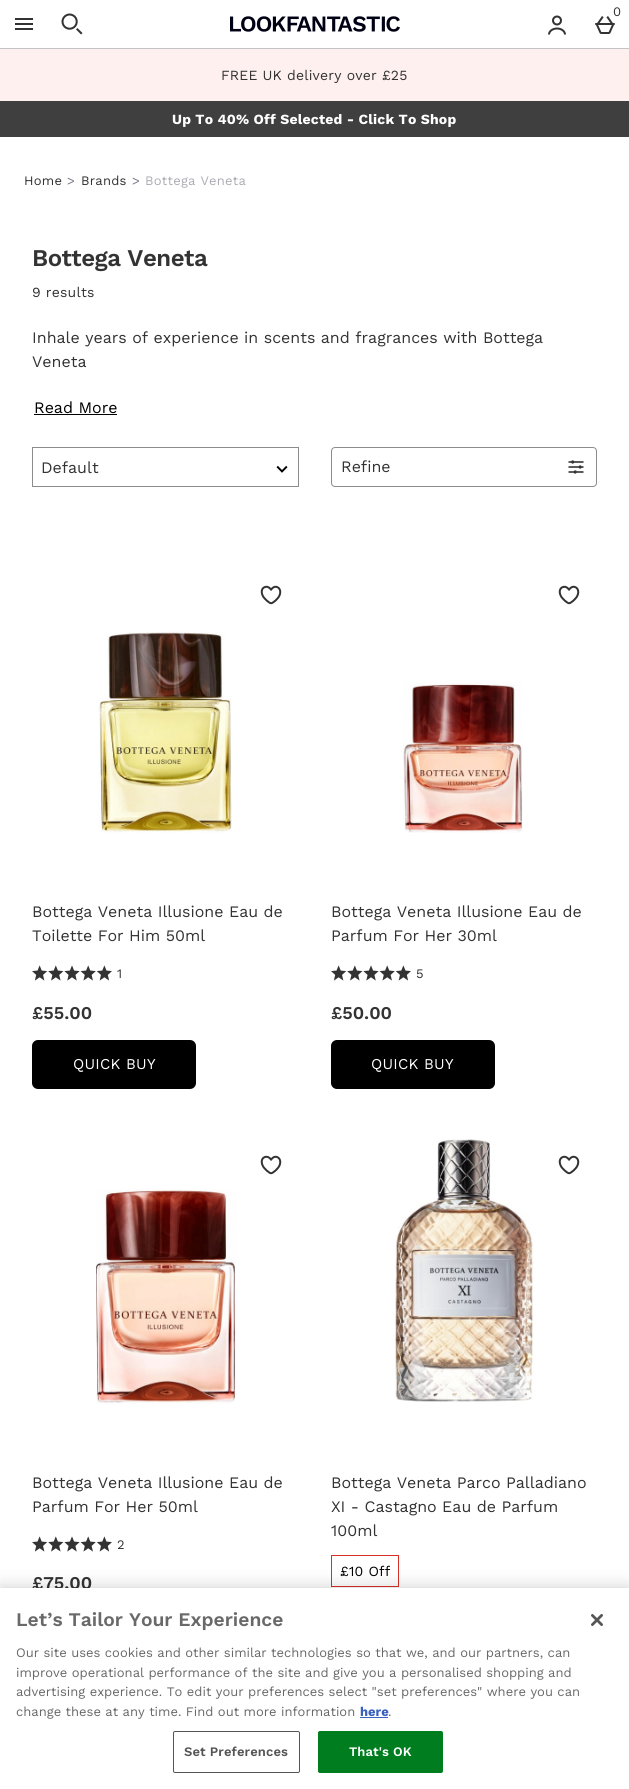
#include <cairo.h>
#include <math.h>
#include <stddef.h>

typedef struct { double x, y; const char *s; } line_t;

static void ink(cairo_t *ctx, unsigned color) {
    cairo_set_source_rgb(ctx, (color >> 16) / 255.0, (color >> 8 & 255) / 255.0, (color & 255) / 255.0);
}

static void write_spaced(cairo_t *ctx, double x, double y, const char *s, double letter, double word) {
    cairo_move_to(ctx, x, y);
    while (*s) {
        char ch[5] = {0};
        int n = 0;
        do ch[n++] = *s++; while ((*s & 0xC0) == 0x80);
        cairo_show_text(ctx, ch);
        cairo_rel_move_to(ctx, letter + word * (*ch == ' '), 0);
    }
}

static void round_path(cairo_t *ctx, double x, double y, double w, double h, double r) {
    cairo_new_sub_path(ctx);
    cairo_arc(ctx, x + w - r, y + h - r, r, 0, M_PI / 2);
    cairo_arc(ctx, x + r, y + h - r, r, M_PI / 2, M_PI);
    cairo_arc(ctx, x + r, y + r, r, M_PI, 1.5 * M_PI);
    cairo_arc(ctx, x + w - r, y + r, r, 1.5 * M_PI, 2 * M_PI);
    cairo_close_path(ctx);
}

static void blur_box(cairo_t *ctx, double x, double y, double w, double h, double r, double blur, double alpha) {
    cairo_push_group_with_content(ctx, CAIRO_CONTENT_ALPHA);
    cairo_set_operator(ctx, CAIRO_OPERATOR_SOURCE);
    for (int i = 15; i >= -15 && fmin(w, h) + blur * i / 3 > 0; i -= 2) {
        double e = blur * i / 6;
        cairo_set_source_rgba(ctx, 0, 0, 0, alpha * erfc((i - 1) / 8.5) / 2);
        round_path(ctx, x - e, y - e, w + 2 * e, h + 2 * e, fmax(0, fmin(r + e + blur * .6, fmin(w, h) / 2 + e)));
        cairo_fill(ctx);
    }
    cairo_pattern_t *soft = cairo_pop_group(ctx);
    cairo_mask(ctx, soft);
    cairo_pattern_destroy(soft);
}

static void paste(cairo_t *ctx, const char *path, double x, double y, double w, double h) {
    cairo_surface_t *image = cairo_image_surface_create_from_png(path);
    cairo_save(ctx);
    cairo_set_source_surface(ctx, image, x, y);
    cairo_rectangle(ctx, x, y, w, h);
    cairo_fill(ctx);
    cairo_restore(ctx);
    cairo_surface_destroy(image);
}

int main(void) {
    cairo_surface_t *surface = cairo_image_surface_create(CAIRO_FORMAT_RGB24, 629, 1789);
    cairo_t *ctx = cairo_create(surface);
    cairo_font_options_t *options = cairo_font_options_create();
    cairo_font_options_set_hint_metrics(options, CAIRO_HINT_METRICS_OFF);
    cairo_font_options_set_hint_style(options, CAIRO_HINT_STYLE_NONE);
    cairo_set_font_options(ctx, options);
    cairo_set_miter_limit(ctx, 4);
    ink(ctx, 0xFFFFFF);
    cairo_paint(ctx);
    ink(ctx, 0xC4C4C4);
    cairo_rectangle(ctx, 0, 48, 629, 1);
    cairo_fill(ctx);
    paste(ctx, "media/1.png", 595, 16, 20, 18);
    cairo_select_font_face(ctx, "Work Sans", CAIRO_FONT_SLANT_NORMAL, CAIRO_FONT_WEIGHT_NORMAL);
    cairo_set_font_size(ctx, 13);
    ink(ctx, 0x333333);
    write_spaced(ctx, 613, 16, "0", 0.25, 0);
    paste(ctx, "media/2.png", 15, 18, 18, 12);
    paste(ctx, "media/3.png", 61, 13, 22, 22);
    paste(ctx, "media/4.png", 230, 16, 170, 16);
    paste(ctx, "media/5.png", 548, 15, 18, 20);
    ink(ctx, 0xFDF0EE);
    cairo_rectangle(ctx, 0, 49, 629, 52);
    cairo_fill(ctx);
    cairo_set_font_size(ctx, 14);
    ink(ctx, 0x333333);
    write_spaced(ctx, 221, 80, "FREE UK delivery over £25", 0.2, 0);
    ink(ctx, 0x3F3F3F);
    cairo_rectangle(ctx, 0, 101, 629, 36);
    cairo_fill(ctx);
    cairo_select_font_face(ctx, "Work Sans", CAIRO_FONT_SLANT_NORMAL, CAIRO_FONT_WEIGHT_BOLD);
    ink(ctx, 0xFFFFFF);
    write_spaced(ctx, 172, 124, "Up To 40% Off Selected - Click To Shop", 0.2, 0);
    cairo_select_font_face(ctx, "Work Sans", CAIRO_FONT_SLANT_NORMAL, CAIRO_FONT_WEIGHT_NORMAL);
    cairo_set_font_size(ctx, 13);
    ink(ctx, 0x333333);
    write_spaced(ctx, 24, 185, "Home", 0.25, 0);
    ink(ctx, 0x747583);
    write_spaced(ctx, 67, 185, ">", 0.25, 0);
    ink(ctx, 0x333333);
    write_spaced(ctx, 81, 185, "Brands", 0.25, 0);
    ink(ctx, 0x747583);
    write_spaced(ctx, 132, 185, ">", 0.25, 0);
    ink(ctx, 0xACACB5);
    write_spaced(ctx, 145, 185, "Bottega Veneta", 0.25, 0);
    cairo_select_font_face(ctx, "Work Sans SemiBold", CAIRO_FONT_SLANT_NORMAL, CAIRO_FONT_WEIGHT_NORMAL);
    cairo_set_font_size(ctx, 24);
    ink(ctx, 0x333333);
    write_spaced(ctx, 32, 266, "Bottega Veneta", -0.5, 0);
    cairo_select_font_face(ctx, "Work Sans", CAIRO_FONT_SLANT_NORMAL, CAIRO_FONT_WEIGHT_NORMAL);
    cairo_set_font_size(ctx, 14);
    write_spaced(ctx, 32, 297, "9 results", 0.2, 0);
    cairo_set_font_size(ctx, 16);
    cairo_move_to(ctx, 32, 343);
    cairo_show_text(ctx, "Inhale years of experience in scents and fragrances with Bottega");
    cairo_move_to(ctx, 32, 367);
    cairo_show_text(ctx, "Veneta");
    ink(ctx, 0x000000);
    cairo_move_to(ctx, 34, 413);
    cairo_show_text(ctx, "Read More");
    cairo_rectangle(ctx, 34, 414, 83, 1);
    cairo_fill(ctx);
    cairo_rectangle(ctx, 32.5, 447.5, 266, 39);
    ink(ctx, 0x8C8C8C);
    cairo_set_line_width(ctx, 1);
    cairo_stroke(ctx);
    ink(ctx, 0x333333);
    cairo_move_to(ctx, 41, 473);
    cairo_show_text(ctx, "Default");
    paste(ctx, "media/6.png", 276, 465, 12, 8);
    round_path(ctx, 331.5, 447.5, 265, 39, 3.5);
    ink(ctx, 0x8C8C8C);
    cairo_stroke(ctx);
    ink(ctx, 0x333333);
    cairo_move_to(ctx, 341, 472);
    cairo_show_text(ctx, "Refine");
    paste(ctx, "media/7.png", 568, 460, 16, 14);
    paste(ctx, "media/8.png", 260, 585, 22, 20);
    paste(ctx, "media/9.png", 98, 631, 134, 202);
    cairo_move_to(ctx, 32, 917);
    cairo_show_text(ctx, "Bottega Veneta Illusione Eau de");
    cairo_move_to(ctx, 32, 941);
    cairo_show_text(ctx, "Toilette For Him 50ml");
    paste(ctx, "media/10.png", 32, 965, 80, 16);
    cairo_set_font_size(ctx, 13);
    write_spaced(ctx, 117, 978, "1", 0.25, 0);
    cairo_select_font_face(ctx, "Work Sans SemiBold", CAIRO_FONT_SLANT_NORMAL, CAIRO_FONT_WEIGHT_NORMAL);
    cairo_set_font_size(ctx, 18);
    cairo_move_to(ctx, 32, 1019);
    cairo_show_text(ctx, "£55.00");
    ink(ctx, 0x000000);
    round_path(ctx, 33, 1041, 162, 47, 5);
    cairo_fill_preserve(ctx);
    cairo_set_line_width(ctx, 2);
    cairo_stroke(ctx);
    cairo_select_font_face(ctx, "Work Sans", CAIRO_FONT_SLANT_NORMAL, CAIRO_FONT_WEIGHT_NORMAL);
    cairo_set_font_size(ctx, 15);
    ink(ctx, 0xFFFFFF);
    write_spaced(ctx, 73, 1069, "QUICK BUY", 0.25, 0);
    paste(ctx, "media/8.png", 558, 585, 22, 20);
    paste(ctx, "media/11.png", 403, 682, 120, 151);
    cairo_set_font_size(ctx, 16);
    ink(ctx, 0x333333);
    cairo_move_to(ctx, 331, 917);
    cairo_show_text(ctx, "Bottega Veneta Illusione Eau de");
    cairo_move_to(ctx, 331, 941);
    cairo_show_text(ctx, "Parfum For Her 30ml");
    paste(ctx, "media/10.png", 331, 965, 80, 16);
    cairo_set_font_size(ctx, 13);
    write_spaced(ctx, 416, 978, "5", 0.25, 0);
    cairo_select_font_face(ctx, "Work Sans SemiBold", CAIRO_FONT_SLANT_NORMAL, CAIRO_FONT_WEIGHT_NORMAL);
    cairo_set_font_size(ctx, 18);
    cairo_move_to(ctx, 331, 1019);
    cairo_show_text(ctx, "£50.00");
    ink(ctx, 0x000000);
    round_path(ctx, 332, 1041, 162, 47, 5);
    cairo_fill_preserve(ctx);
    cairo_stroke(ctx);
    cairo_select_font_face(ctx, "Work Sans", CAIRO_FONT_SLANT_NORMAL, CAIRO_FONT_WEIGHT_NORMAL);
    cairo_set_font_size(ctx, 15);
    ink(ctx, 0xFFFFFF);
    write_spaced(ctx, 371, 1069, "QUICK BUY", 0.25, 0);
    paste(ctx, "media/8.png", 260, 1155, 22, 20);
    paste(ctx, "media/12.png", 96, 1189, 140, 215);
    cairo_set_font_size(ctx, 16);
    ink(ctx, 0x333333);
    cairo_move_to(ctx, 32, 1488);
    cairo_show_text(ctx, "Bottega Veneta Illusione Eau de");
    cairo_move_to(ctx, 32, 1512);
    cairo_show_text(ctx, "Parfum For Her 50ml");
    paste(ctx, "media/10.png", 32, 1536, 80, 16);
    cairo_set_font_size(ctx, 13);
    write_spaced(ctx, 117, 1549, "2", 0.25, 0);
    cairo_select_font_face(ctx, "Work Sans SemiBold", CAIRO_FONT_SLANT_NORMAL, CAIRO_FONT_WEIGHT_NORMAL);
    cairo_set_font_size(ctx, 18);
    cairo_move_to(ctx, 32, 1589);
    cairo_show_text(ctx, "£75.00");
    paste(ctx, "media/13.png", 395, 1139, 139, 263);
    paste(ctx, "media/8.png", 558, 1155, 22, 20);
    cairo_select_font_face(ctx, "Work Sans", CAIRO_FONT_SLANT_NORMAL, CAIRO_FONT_WEIGHT_NORMAL);
    cairo_set_font_size(ctx, 16);
    {
        static const line_t items[] = {
            {331, 1488, "Bottega Veneta Parco Palladiano"},
            {331, 1512, "XI - Castagno Eau de Parfum"},
            {331, 1536, "100ml"},
        };
        for (size_t i = 0; i < sizeof items / sizeof *items; i++) {
            cairo_move_to(ctx, items[i].x, items[i].y);
            cairo_show_text(ctx, items[i].s);
        }
    }
    cairo_rectangle(ctx, 331.5, 1555.5, 67, 31);
    ink(ctx, 0xD93025);
    cairo_set_line_width(ctx, 1);
    cairo_stroke(ctx);
    cairo_set_font_size(ctx, 14);
    ink(ctx, 0x000000);
    write_spaced(ctx, 340, 1576, "£10 Off", 0.2, 0);
    ink(ctx, 0x000000);
    blur_box(ctx, 0, 1588, 629, 201, 0, 9, 0.2);
    ink(ctx, 0xFFFFFF);
    cairo_rectangle(ctx, 0, 1588, 629, 201);
    cairo_fill(ctx);
    cairo_select_font_face(ctx, "Work Sans SemiBold", CAIRO_FONT_SLANT_NORMAL, CAIRO_FONT_WEIGHT_NORMAL);
    cairo_set_font_size(ctx, 19.25);
    ink(ctx, 0x696969);
    cairo_move_to(ctx, 16, 1626);
    cairo_show_text(ctx, "Let’s Tailor Your Experience");
    cairo_select_font_face(ctx, "Work Sans", CAIRO_FONT_SLANT_NORMAL, CAIRO_FONT_WEIGHT_NORMAL);
    cairo_set_font_size(ctx, 13);
    {
        static const line_t items[] = {
            {16, 1657, "Our site uses cookies and other similar technologies so that we, and our partners, can"},
            {16, 1677, "improve operational performance of the site and give you a personalised shopping and"},
            {16, 1696, "advertising experience. To edit your preferences select \"set preferences\" where you can"},
            {16, 1716, "change these at any time. Find out more information"},
        };
        for (size_t i = 0; i < sizeof items / sizeof *items; i++) {
            cairo_move_to(ctx, items[i].x, items[i].y);
            cairo_show_text(ctx, items[i].s);
        }
    }
    cairo_select_font_face(ctx, "Work Sans", CAIRO_FONT_SLANT_NORMAL, CAIRO_FONT_WEIGHT_BOLD);
    ink(ctx, 0x3860BE);
    cairo_move_to(ctx, 360, 1716);
    cairo_show_text(ctx, "here");
    cairo_rectangle(ctx, 360, 1717, 28, 1);
    cairo_fill(ctx);
    cairo_select_font_face(ctx, "Work Sans", CAIRO_FONT_SLANT_NORMAL, CAIRO_FONT_WEIGHT_NORMAL);
    ink(ctx, 0x696969);
    cairo_move_to(ctx, 388, 1716);
    cairo_show_text(ctx, ".");
    round_path(ctx, 173.5, 1731.5, 126, 41, 1.5);
    ink(ctx, 0x555555);
    cairo_stroke(ctx);
    cairo_select_font_face(ctx, "Work Sans SemiBold", CAIRO_FONT_SLANT_NORMAL, CAIRO_FONT_WEIGHT_NORMAL);
    write_spaced(ctx, 184, 1756, "Set Preferences", 0.1, 0);
    ink(ctx, 0x007D1E);
    round_path(ctx, 318.5, 1731.5, 124, 41, 1.5);
    cairo_fill_preserve(ctx);
    cairo_stroke(ctx);
    ink(ctx, 0xFFFFFF);
    write_spaced(ctx, 349, 1756, "That's OK", 0.1, 0);
    paste(ctx, "media/14.png", 591, 1614, 12, 12);
    cairo_surface_write_to_png(surface, "image.png");
    cairo_font_options_destroy(options);
    cairo_destroy(ctx);
    cairo_surface_destroy(surface);
    return 0;
}
